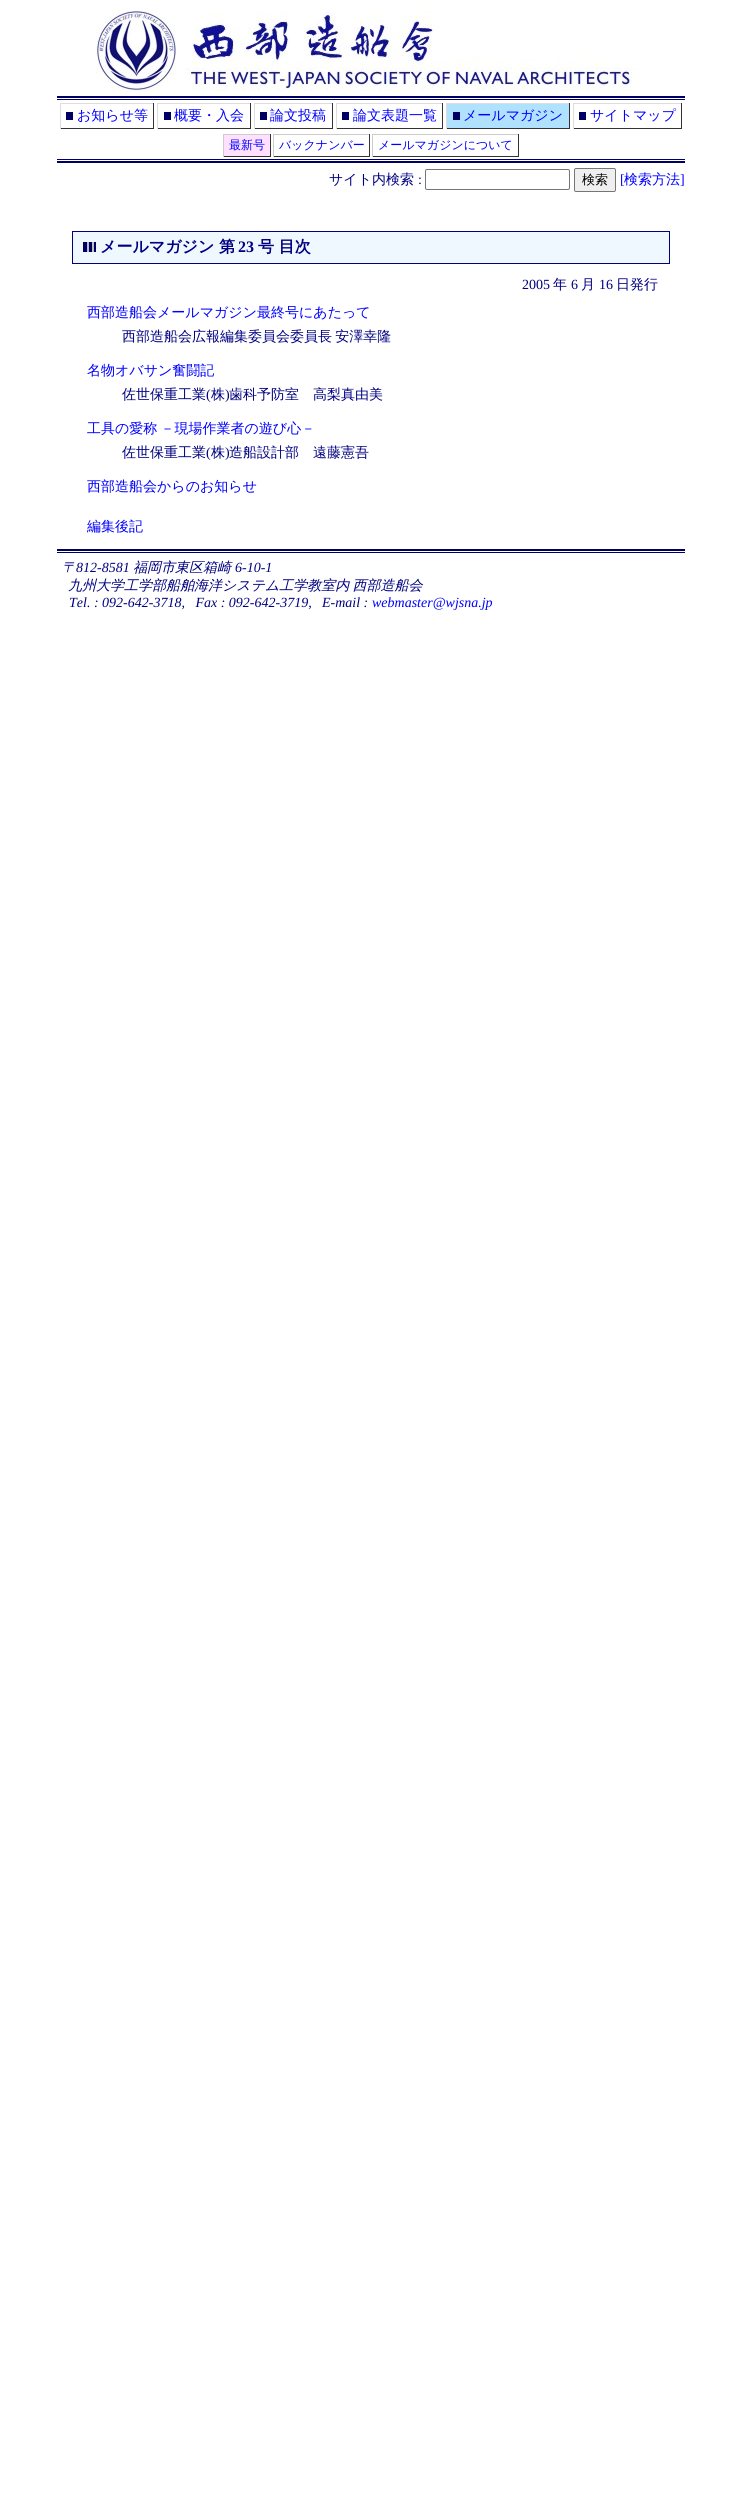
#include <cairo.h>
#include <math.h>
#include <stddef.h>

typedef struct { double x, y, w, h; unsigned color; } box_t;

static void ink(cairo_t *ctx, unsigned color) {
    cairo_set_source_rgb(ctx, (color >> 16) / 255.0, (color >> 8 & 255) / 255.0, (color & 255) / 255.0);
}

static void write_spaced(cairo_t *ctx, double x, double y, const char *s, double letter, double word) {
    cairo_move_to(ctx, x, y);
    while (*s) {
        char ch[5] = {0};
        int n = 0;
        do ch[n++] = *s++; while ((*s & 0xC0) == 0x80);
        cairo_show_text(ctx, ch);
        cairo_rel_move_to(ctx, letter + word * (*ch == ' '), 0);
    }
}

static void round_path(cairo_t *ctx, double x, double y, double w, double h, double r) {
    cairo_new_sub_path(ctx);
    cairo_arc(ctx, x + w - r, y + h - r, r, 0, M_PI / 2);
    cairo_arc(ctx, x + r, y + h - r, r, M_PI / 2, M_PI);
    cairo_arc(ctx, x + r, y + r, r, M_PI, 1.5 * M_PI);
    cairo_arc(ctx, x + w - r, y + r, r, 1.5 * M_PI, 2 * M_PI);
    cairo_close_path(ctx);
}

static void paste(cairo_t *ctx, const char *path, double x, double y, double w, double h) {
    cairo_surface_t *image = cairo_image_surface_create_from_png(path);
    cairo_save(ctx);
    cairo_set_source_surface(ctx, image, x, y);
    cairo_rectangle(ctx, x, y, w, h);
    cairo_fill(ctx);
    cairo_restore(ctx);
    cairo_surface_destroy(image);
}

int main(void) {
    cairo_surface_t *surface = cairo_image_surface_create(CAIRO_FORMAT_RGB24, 742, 2517);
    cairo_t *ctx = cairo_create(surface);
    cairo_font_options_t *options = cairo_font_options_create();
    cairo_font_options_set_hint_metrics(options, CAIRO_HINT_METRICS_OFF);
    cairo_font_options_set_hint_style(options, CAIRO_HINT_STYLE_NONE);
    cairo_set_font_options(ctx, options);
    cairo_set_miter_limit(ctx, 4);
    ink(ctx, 0xFFFFFF);
    cairo_paint(ctx);
    paste(ctx, "media/1.png", 96, 11, 80, 80);
    paste(ctx, "media/2.png", 185, 11, 455, 80);
    {
        static const box_t items[] = {
            {57, 96, 628, 2, 0x000064},
            {57, 99, 628, 1, 0x000064},
            {60, 103, 94, 1, 0xDDDDDD},
            {153, 103, 1, 26, 0x333333},
            {60, 128, 94, 1, 0x333333},
            {60, 103, 1, 26, 0xDDDDDD},
            {66, 112, 7, 8, 0x000064},
        };
        for (size_t i = 0; i < sizeof items / sizeof *items; i++) {
            ink(ctx, items[i].color);
            cairo_rectangle(ctx, items[i].x, items[i].y, items[i].w, items[i].h);
            cairo_fill(ctx);
        }
    }
    cairo_select_font_face(ctx, "WenQuanYi Zen Hei Medium", CAIRO_FONT_SLANT_NORMAL, CAIRO_FONT_WEIGHT_NORMAL);
    cairo_set_font_size(ctx, 14);
    ink(ctx, 0x0000FF);
    cairo_move_to(ctx, 77, 120);
    cairo_show_text(ctx, "お知らせ等");
    {
        static const box_t items[] = {
            {157, 103, 94, 1, 0xDDDDDD},
            {250, 103, 1, 26, 0x333333},
            {157, 128, 94, 1, 0x333333},
            {157, 103, 1, 26, 0xDDDDDD},
            {164, 112, 7, 8, 0x000064},
        };
        for (size_t i = 0; i < sizeof items / sizeof *items; i++) {
            ink(ctx, items[i].color);
            cairo_rectangle(ctx, items[i].x, items[i].y, items[i].w, items[i].h);
            cairo_fill(ctx);
        }
    }
    ink(ctx, 0x0000FF);
    cairo_move_to(ctx, 174, 120);
    cairo_show_text(ctx, "概要・入会");
    {
        static const box_t items[] = {
            {254, 103, 79, 1, 0xDDDDDD},
            {332, 103, 1, 26, 0x333333},
            {254, 128, 79, 1, 0x333333},
            {254, 103, 1, 26, 0xDDDDDD},
            {260, 112, 7, 8, 0x000064},
        };
        for (size_t i = 0; i < sizeof items / sizeof *items; i++) {
            ink(ctx, items[i].color);
            cairo_rectangle(ctx, items[i].x, items[i].y, items[i].w, items[i].h);
            cairo_fill(ctx);
        }
    }
    ink(ctx, 0x0000FF);
    cairo_move_to(ctx, 270, 120);
    cairo_show_text(ctx, "論文投稿");
    {
        static const box_t items[] = {
            {336, 103, 107, 1, 0xDDDDDD},
            {442, 103, 1, 26, 0x333333},
            {336, 128, 107, 1, 0x333333},
            {336, 103, 1, 26, 0xDDDDDD},
            {342, 112, 7, 8, 0x000064},
        };
        for (size_t i = 0; i < sizeof items / sizeof *items; i++) {
            ink(ctx, items[i].color);
            cairo_rectangle(ctx, items[i].x, items[i].y, items[i].w, items[i].h);
            cairo_fill(ctx);
        }
    }
    ink(ctx, 0x0000FF);
    cairo_move_to(ctx, 353, 120);
    cairo_show_text(ctx, "論文表題一覧");
    {
        static const box_t items[] = {
            {447, 104, 122, 24, 0xB0E2FF},
            {446, 103, 124, 1, 0xDDDDDD},
            {569, 103, 1, 26, 0x333333},
            {446, 128, 124, 1, 0x333333},
            {446, 103, 1, 26, 0xDDDDDD},
            {453, 112, 7, 8, 0x000064},
        };
        for (size_t i = 0; i < sizeof items / sizeof *items; i++) {
            ink(ctx, items[i].color);
            cairo_rectangle(ctx, items[i].x, items[i].y, items[i].w, items[i].h);
            cairo_fill(ctx);
        }
    }
    ink(ctx, 0x0000FF);
    cairo_move_to(ctx, 463, 120);
    cairo_show_text(ctx, "メールマガジン");
    {
        static const box_t items[] = {
            {573, 103, 109, 1, 0xDDDDDD},
            {681, 103, 1, 26, 0x333333},
            {573, 128, 109, 1, 0x333333},
            {573, 103, 1, 26, 0xDDDDDD},
            {579, 112, 7, 8, 0x000064},
        };
        for (size_t i = 0; i < sizeof items / sizeof *items; i++) {
            ink(ctx, items[i].color);
            cairo_rectangle(ctx, items[i].x, items[i].y, items[i].w, items[i].h);
            cairo_fill(ctx);
        }
    }
    ink(ctx, 0x0000FF);
    cairo_move_to(ctx, 590, 120);
    cairo_show_text(ctx, "サイトマップ");
    {
        static const box_t items[] = {
            {224, 135, 46, 21, 0xFFE1FF},
            {223, 134, 48, 1, 0xCCCCCC},
            {270, 134, 1, 23, 0x333333},
            {223, 156, 48, 1, 0x333333},
            {223, 134, 1, 23, 0xCCCCCC},
        };
        for (size_t i = 0; i < sizeof items / sizeof *items; i++) {
            ink(ctx, items[i].color);
            cairo_rectangle(ctx, items[i].x, items[i].y, items[i].w, items[i].h);
            cairo_fill(ctx);
        }
    }
    cairo_set_font_size(ctx, 12);
    ink(ctx, 0x0000FF);
    cairo_move_to(ctx, 229, 149);
    cairo_show_text(ctx, "最新号");
    {
        static const box_t items[] = {
            {273, 134, 97, 1, 0xCCCCCC},
            {369, 134, 1, 23, 0x333333},
            {273, 156, 97, 1, 0x333333},
            {273, 134, 1, 23, 0xCCCCCC},
        };
        for (size_t i = 0; i < sizeof items / sizeof *items; i++) {
            ink(ctx, items[i].color);
            cairo_rectangle(ctx, items[i].x, items[i].y, items[i].w, items[i].h);
            cairo_fill(ctx);
        }
    }
    ink(ctx, 0x0000FF);
    cairo_move_to(ctx, 279, 149);
    cairo_show_text(ctx, "バックナンバー");
    {
        static const box_t items[] = {
            {372, 134, 147, 1, 0xCCCCCC},
            {518, 134, 1, 23, 0x333333},
            {372, 156, 147, 1, 0x333333},
            {372, 134, 1, 23, 0xCCCCCC},
        };
        for (size_t i = 0; i < sizeof items / sizeof *items; i++) {
            ink(ctx, items[i].color);
            cairo_rectangle(ctx, items[i].x, items[i].y, items[i].w, items[i].h);
            cairo_fill(ctx);
        }
    }
    ink(ctx, 0x0000FF);
    cairo_move_to(ctx, 378, 149);
    cairo_show_text(ctx, "メールマガジンについて");
    ink(ctx, 0x000064);
    cairo_rectangle(ctx, 57, 159, 628, 1);
    cairo_fill(ctx);
    cairo_rectangle(ctx, 57, 161, 628, 2);
    cairo_fill(ctx);
    cairo_set_font_size(ctx, 14);
    ink(ctx, 0x000080);
    cairo_move_to(ctx, 329, 184);
    cairo_show_text(ctx, "サイト内検索");
    cairo_select_font_face(ctx, "Liberation Serif", CAIRO_FONT_SLANT_NORMAL, CAIRO_FONT_WEIGHT_NORMAL);
    cairo_move_to(ctx, 418, 184);
    cairo_show_text(ctx, ":");
    round_path(ctx, 425.5, 169.5, 144, 20, 1.5);
    ink(ctx, 0x767676);
    cairo_set_line_width(ctx, 1);
    cairo_stroke(ctx);
    ink(ctx, 0xEFEFEF);
    round_path(ctx, 574.5, 168.5, 41, 23, 1.5);
    cairo_fill_preserve(ctx);
    ink(ctx, 0x767676);
    cairo_stroke(ctx);
    cairo_select_font_face(ctx, "WenQuanYi Zen Hei Medium", CAIRO_FONT_SLANT_NORMAL, CAIRO_FONT_WEIGHT_NORMAL);
    cairo_set_font_size(ctx, 13);
    ink(ctx, 0x000000);
    cairo_move_to(ctx, 582, 184);
    cairo_show_text(ctx, "検索");
    cairo_select_font_face(ctx, "Liberation Serif", CAIRO_FONT_SLANT_NORMAL, CAIRO_FONT_WEIGHT_NORMAL);
    cairo_set_font_size(ctx, 14);
    ink(ctx, 0x0000FF);
    cairo_move_to(ctx, 620, 184);
    cairo_show_text(ctx, "[");
    cairo_select_font_face(ctx, "WenQuanYi Zen Hei Medium", CAIRO_FONT_SLANT_NORMAL, CAIRO_FONT_WEIGHT_NORMAL);
    cairo_move_to(ctx, 624, 184);
    cairo_show_text(ctx, "検索方法");
    cairo_select_font_face(ctx, "Liberation Serif", CAIRO_FONT_SLANT_NORMAL, CAIRO_FONT_WEIGHT_NORMAL);
    cairo_move_to(ctx, 680, 184);
    cairo_show_text(ctx, "]");
    ink(ctx, 0xF0F8FF);
    cairo_rectangle(ctx, 72.5, 231.5, 597, 32);
    cairo_fill_preserve(ctx);
    ink(ctx, 0x000080);
    cairo_stroke(ctx);
    paste(ctx, "media/3.png", 83, 242, 13, 10);
    cairo_select_font_face(ctx, "WenQuanYi Zen Hei", CAIRO_FONT_SLANT_NORMAL, CAIRO_FONT_WEIGHT_BOLD);
    cairo_set_font_size(ctx, 16);
    cairo_move_to(ctx, 100, 252);
    cairo_show_text(ctx, "メールマガジン 第");
    cairo_select_font_face(ctx, "Liberation Serif", CAIRO_FONT_SLANT_NORMAL, CAIRO_FONT_WEIGHT_BOLD);
    cairo_move_to(ctx, 238, 252);
    cairo_show_text(ctx, "23");
    cairo_select_font_face(ctx, "WenQuanYi Zen Hei", CAIRO_FONT_SLANT_NORMAL, CAIRO_FONT_WEIGHT_BOLD);
    cairo_move_to(ctx, 258, 252);
    cairo_show_text(ctx, "号 目次");
    cairo_select_font_face(ctx, "Liberation Serif", CAIRO_FONT_SLANT_NORMAL, CAIRO_FONT_WEIGHT_NORMAL);
    cairo_set_font_size(ctx, 14);
    cairo_move_to(ctx, 522, 289);
    cairo_show_text(ctx, "2005");
    cairo_select_font_face(ctx, "WenQuanYi Zen Hei Medium", CAIRO_FONT_SLANT_NORMAL, CAIRO_FONT_WEIGHT_NORMAL);
    cairo_move_to(ctx, 553, 289);
    cairo_show_text(ctx, "年");
    cairo_select_font_face(ctx, "Liberation Serif", CAIRO_FONT_SLANT_NORMAL, CAIRO_FONT_WEIGHT_NORMAL);
    cairo_move_to(ctx, 571, 289);
    cairo_show_text(ctx, "6");
    cairo_select_font_face(ctx, "WenQuanYi Zen Hei Medium", CAIRO_FONT_SLANT_NORMAL, CAIRO_FONT_WEIGHT_NORMAL);
    cairo_move_to(ctx, 581, 289);
    cairo_show_text(ctx, "月");
    cairo_select_font_face(ctx, "Liberation Serif", CAIRO_FONT_SLANT_NORMAL, CAIRO_FONT_WEIGHT_NORMAL);
    cairo_move_to(ctx, 599, 289);
    cairo_show_text(ctx, "16");
    cairo_select_font_face(ctx, "WenQuanYi Zen Hei Medium", CAIRO_FONT_SLANT_NORMAL, CAIRO_FONT_WEIGHT_NORMAL);
    cairo_move_to(ctx, 616, 289);
    cairo_show_text(ctx, "日発行");
    ink(ctx, 0x0000FF);
    cairo_move_to(ctx, 87, 317);
    cairo_show_text(ctx, "西部造船会メールマガジン最終号にあたって");
    ink(ctx, 0x000080);
    write_spaced(ctx, 122, 341, "西部造船会広報編集委員会委員長 安澤幸隆", 0, -1);
    ink(ctx, 0x0000FF);
    cairo_move_to(ctx, 87, 375);
    cairo_show_text(ctx, "名物オバサン奮闘記");
    ink(ctx, 0x000080);
    cairo_move_to(ctx, 122, 399);
    cairo_show_text(ctx, "佐世保重工業");
    cairo_select_font_face(ctx, "Liberation Serif", CAIRO_FONT_SLANT_NORMAL, CAIRO_FONT_WEIGHT_NORMAL);
    cairo_move_to(ctx, 206, 399);
    cairo_show_text(ctx, "(");
    cairo_select_font_face(ctx, "WenQuanYi Zen Hei Medium", CAIRO_FONT_SLANT_NORMAL, CAIRO_FONT_WEIGHT_NORMAL);
    cairo_move_to(ctx, 211, 399);
    cairo_show_text(ctx, "株");
    cairo_select_font_face(ctx, "Liberation Serif", CAIRO_FONT_SLANT_NORMAL, CAIRO_FONT_WEIGHT_NORMAL);
    cairo_move_to(ctx, 225, 399);
    cairo_show_text(ctx, ")");
    cairo_select_font_face(ctx, "WenQuanYi Zen Hei Medium", CAIRO_FONT_SLANT_NORMAL, CAIRO_FONT_WEIGHT_NORMAL);
    cairo_move_to(ctx, 229, 399);
    cairo_show_text(ctx, "歯科予防室　高梨真由美");
    ink(ctx, 0x0000FF);
    write_spaced(ctx, 87, 433, "工具の愛称 －現場作業者の遊び心－", 0, -1);
    ink(ctx, 0x000080);
    cairo_move_to(ctx, 122, 457);
    cairo_show_text(ctx, "佐世保重工業");
    cairo_select_font_face(ctx, "Liberation Serif", CAIRO_FONT_SLANT_NORMAL, CAIRO_FONT_WEIGHT_NORMAL);
    cairo_move_to(ctx, 206, 457);
    cairo_show_text(ctx, "(");
    cairo_select_font_face(ctx, "WenQuanYi Zen Hei Medium", CAIRO_FONT_SLANT_NORMAL, CAIRO_FONT_WEIGHT_NORMAL);
    cairo_move_to(ctx, 211, 457);
    cairo_show_text(ctx, "株");
    cairo_select_font_face(ctx, "Liberation Serif", CAIRO_FONT_SLANT_NORMAL, CAIRO_FONT_WEIGHT_NORMAL);
    cairo_move_to(ctx, 225, 457);
    cairo_show_text(ctx, ")");
    cairo_select_font_face(ctx, "WenQuanYi Zen Hei Medium", CAIRO_FONT_SLANT_NORMAL, CAIRO_FONT_WEIGHT_NORMAL);
    cairo_move_to(ctx, 229, 457);
    cairo_show_text(ctx, "造船設計部　遠藤憲吾");
    ink(ctx, 0x0000FF);
    cairo_move_to(ctx, 87, 491);
    cairo_show_text(ctx, "西部造船会からのお知らせ");
    cairo_move_to(ctx, 87, 531);
    cairo_show_text(ctx, "編集後記");
    ink(ctx, 0x000064);
    cairo_rectangle(ctx, 57, 549, 628, 2);
    cairo_fill(ctx);
    cairo_rectangle(ctx, 57, 552, 628, 1);
    cairo_fill(ctx);
    cairo_select_font_face(ctx, "WenQuanYi Zen Hei Medium", CAIRO_FONT_SLANT_ITALIC, CAIRO_FONT_WEIGHT_NORMAL);
    ink(ctx, 0x000080);
    cairo_move_to(ctx, 62, 572);
    cairo_show_text(ctx, "〒");
    cairo_select_font_face(ctx, "Liberation Serif", CAIRO_FONT_SLANT_ITALIC, CAIRO_FONT_WEIGHT_NORMAL);
    cairo_move_to(ctx, 76, 572);
    cairo_show_text(ctx, "812-8581");
    cairo_select_font_face(ctx, "WenQuanYi Zen Hei Medium", CAIRO_FONT_SLANT_ITALIC, CAIRO_FONT_WEIGHT_NORMAL);
    cairo_move_to(ctx, 133, 572);
    cairo_show_text(ctx, "福岡市東区箱崎");
    cairo_select_font_face(ctx, "Liberation Serif", CAIRO_FONT_SLANT_ITALIC, CAIRO_FONT_WEIGHT_NORMAL);
    cairo_move_to(ctx, 235, 572);
    cairo_show_text(ctx, "6-10-1");
    cairo_select_font_face(ctx, "WenQuanYi Zen Hei Medium", CAIRO_FONT_SLANT_ITALIC, CAIRO_FONT_WEIGHT_NORMAL);
    write_spaced(ctx, 68, 590, "九州大学工学部船舶海洋システム工学教室内 西部造船会", 0, -1);
    cairo_select_font_face(ctx, "Liberation Serif", CAIRO_FONT_SLANT_ITALIC, CAIRO_FONT_WEIGHT_NORMAL);
    cairo_move_to(ctx, 69, 607);
    cairo_show_text(ctx, "Tel. : 092-642-3718,   Fax : 092-642-3719,");
    cairo_move_to(ctx, 322, 607);
    cairo_show_text(ctx, "E-mail :");
    ink(ctx, 0x0000FF);
    cairo_move_to(ctx, 372, 607);
    cairo_show_text(ctx, "webmaster@wjsna.jp");
    cairo_surface_write_to_png(surface, "image.png");
    cairo_font_options_destroy(options);
    cairo_destroy(ctx);
    cairo_surface_destroy(surface);
    return 0;
}
